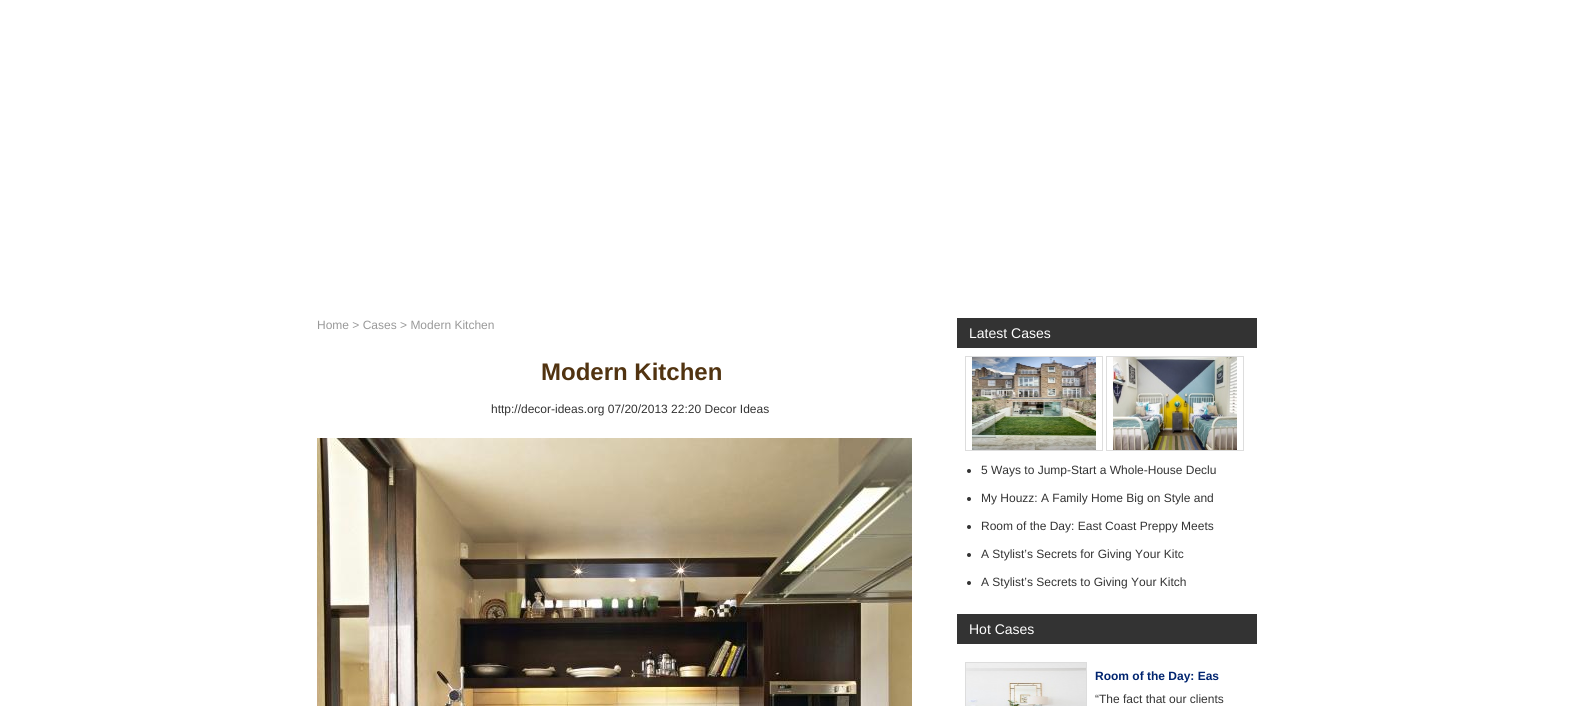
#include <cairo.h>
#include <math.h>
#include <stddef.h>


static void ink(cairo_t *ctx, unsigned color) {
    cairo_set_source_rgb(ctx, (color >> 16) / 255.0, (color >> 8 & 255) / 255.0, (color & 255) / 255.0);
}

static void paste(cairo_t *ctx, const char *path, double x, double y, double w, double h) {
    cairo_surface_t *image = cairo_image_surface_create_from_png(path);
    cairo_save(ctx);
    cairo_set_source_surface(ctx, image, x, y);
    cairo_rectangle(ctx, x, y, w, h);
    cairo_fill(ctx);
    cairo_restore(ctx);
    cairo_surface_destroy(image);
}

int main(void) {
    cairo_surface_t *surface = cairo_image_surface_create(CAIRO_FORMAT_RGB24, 1583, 706);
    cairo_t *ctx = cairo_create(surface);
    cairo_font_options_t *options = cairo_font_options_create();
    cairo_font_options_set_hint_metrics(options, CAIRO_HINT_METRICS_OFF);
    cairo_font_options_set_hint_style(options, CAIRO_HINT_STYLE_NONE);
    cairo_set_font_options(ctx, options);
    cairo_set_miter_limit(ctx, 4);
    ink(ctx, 0xFFFFFF);
    cairo_paint(ctx);
    cairo_select_font_face(ctx, "Liberation Sans", CAIRO_FONT_SLANT_NORMAL, CAIRO_FONT_WEIGHT_NORMAL);
    cairo_set_font_size(ctx, 12);
    ink(ctx, 0x999999);
    cairo_move_to(ctx, 317, 329);
    cairo_show_text(ctx, "Home > Cases > Modern Kitchen");
    cairo_select_font_face(ctx, "Liberation Sans", CAIRO_FONT_SLANT_NORMAL, CAIRO_FONT_WEIGHT_BOLD);
    cairo_set_font_size(ctx, 24);
    ink(ctx, 0x513310);
    cairo_move_to(ctx, 541, 380);
    cairo_show_text(ctx, "Modern Kitchen");
    cairo_select_font_face(ctx, "Liberation Sans", CAIRO_FONT_SLANT_NORMAL, CAIRO_FONT_WEIGHT_NORMAL);
    cairo_set_font_size(ctx, 12);
    ink(ctx, 0x333333);
    cairo_move_to(ctx, 491, 413);
    cairo_show_text(ctx, "http://decor-ideas.org 07/20/2013 22:20 Decor Ideas");
    paste(ctx, "media/1.png", 317, 438, 595, 268);
    cairo_rectangle(ctx, 957, 318, 300, 30);
    cairo_fill(ctx);
    cairo_set_font_size(ctx, 14);
    ink(ctx, 0xFFFFFF);
    cairo_move_to(ctx, 969, 338);
    cairo_show_text(ctx, "Latest Cases");
    cairo_rectangle(ctx, 965.5, 356.5, 137, 94);
    ink(ctx, 0xDDDDDD);
    cairo_set_line_width(ctx, 1);
    cairo_stroke(ctx);
    cairo_rectangle(ctx, 1106.5, 356.5, 137, 94);
    cairo_stroke(ctx);
    paste(ctx, "media/2.png", 972, 357, 124, 93);
    paste(ctx, "media/3.png", 1113, 357, 124, 93);
    ink(ctx, 0x333333);
    cairo_arc(ctx, 969, 471, 2, 0, 2 * M_PI);
    cairo_fill(ctx);
    cairo_set_font_size(ctx, 12);
    cairo_move_to(ctx, 981, 474);
    cairo_show_text(ctx, "5 Ways to Jump-Start a Whole-House Declu");
    cairo_new_path(ctx);
    cairo_arc(ctx, 969, 499, 2, 0, 2 * M_PI);
    cairo_fill(ctx);
    cairo_move_to(ctx, 981, 502);
    cairo_show_text(ctx, "My Houzz: A Family Home Big on Style and");
    cairo_new_path(ctx);
    cairo_arc(ctx, 969, 527, 2, 0, 2 * M_PI);
    cairo_fill(ctx);
    cairo_move_to(ctx, 981, 530);
    cairo_show_text(ctx, "Room of the Day: East Coast Preppy Meets");
    cairo_new_path(ctx);
    cairo_arc(ctx, 969, 555, 2, 0, 2 * M_PI);
    cairo_fill(ctx);
    cairo_move_to(ctx, 981, 558);
    cairo_show_text(ctx, "A Stylist’s Secrets for Giving Your Kitc");
    cairo_new_path(ctx);
    cairo_arc(ctx, 969, 583, 2, 0, 2 * M_PI);
    cairo_fill(ctx);
    cairo_move_to(ctx, 981, 586);
    cairo_show_text(ctx, "A Stylist’s Secrets to Giving Your Kitch");
    cairo_rectangle(ctx, 957, 614, 300, 30);
    cairo_fill(ctx);
    cairo_set_font_size(ctx, 14);
    ink(ctx, 0xFFFFFF);
    cairo_move_to(ctx, 969, 634);
    cairo_show_text(ctx, "Hot Cases");
    cairo_rectangle(ctx, 965.5, 662.5, 121, 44);
    ink(ctx, 0xDDDDDD);
    cairo_stroke(ctx);
    paste(ctx, "media/4.png", 966, 663, 120, 43);
    cairo_select_font_face(ctx, "Liberation Sans", CAIRO_FONT_SLANT_NORMAL, CAIRO_FONT_WEIGHT_BOLD);
    cairo_set_font_size(ctx, 12);
    ink(ctx, 0x00246F);
    cairo_move_to(ctx, 1095, 680);
    cairo_show_text(ctx, "Room of the Day: Eas");
    cairo_select_font_face(ctx, "Liberation Sans", CAIRO_FONT_SLANT_NORMAL, CAIRO_FONT_WEIGHT_NORMAL);
    ink(ctx, 0x333333);
    cairo_move_to(ctx, 1095, 703);
    cairo_show_text(ctx, "“The fact that our clients");
    cairo_surface_write_to_png(surface, "image.png");
    cairo_font_options_destroy(options);
    cairo_destroy(ctx);
    cairo_surface_destroy(surface);
    return 0;
}
